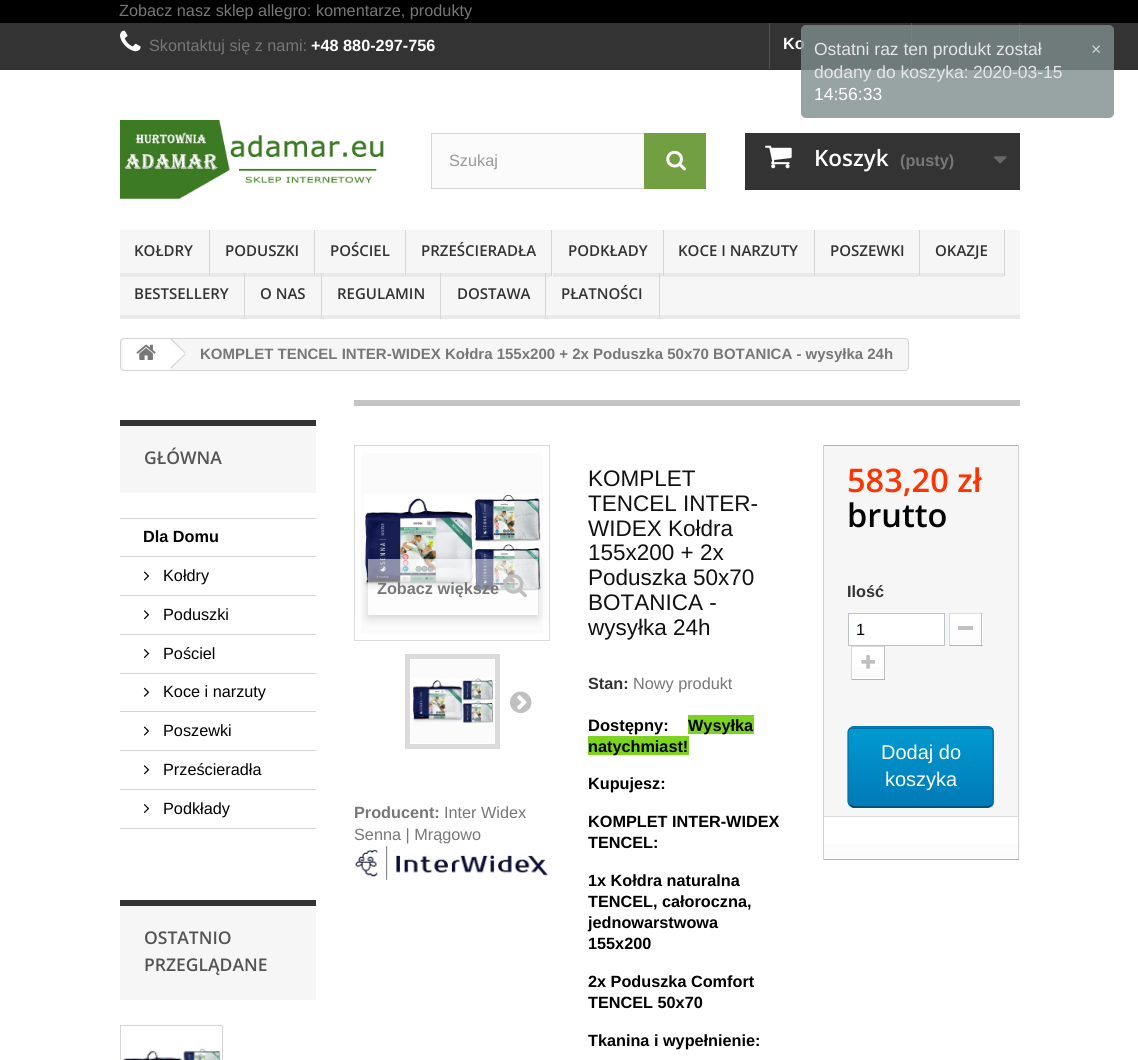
#include <cairo.h>
#include <math.h>
#include <stddef.h>

typedef struct { double x, y; const char *s; } line_t;
typedef struct { double x, y, w, h; unsigned color; } box_t;

static void ink(cairo_t *ctx, unsigned color) {
    cairo_set_source_rgb(ctx, (color >> 16) / 255.0, (color >> 8 & 255) / 255.0, (color & 255) / 255.0);
}

static void round_path(cairo_t *ctx, double x, double y, double w, double h, double r) {
    cairo_new_sub_path(ctx);
    cairo_arc(ctx, x + w - r, y + h - r, r, 0, M_PI / 2);
    cairo_arc(ctx, x + r, y + h - r, r, M_PI / 2, M_PI);
    cairo_arc(ctx, x + r, y + r, r, M_PI, 1.5 * M_PI);
    cairo_arc(ctx, x + w - r, y + r, r, 1.5 * M_PI, 2 * M_PI);
    cairo_close_path(ctx);
}

static void blur_box(cairo_t *ctx, double x, double y, double w, double h, double r, double blur, double alpha) {
    cairo_push_group_with_content(ctx, CAIRO_CONTENT_ALPHA);
    cairo_set_operator(ctx, CAIRO_OPERATOR_SOURCE);
    for (int i = 15; i >= -15 && fmin(w, h) + blur * i / 3 > 0; i -= 2) {
        double e = blur * i / 6;
        cairo_set_source_rgba(ctx, 0, 0, 0, alpha * erfc((i - 1) / 8.5) / 2);
        round_path(ctx, x - e, y - e, w + 2 * e, h + 2 * e, fmax(0, fmin(r + e + blur * .6, fmin(w, h) / 2 + e)));
        cairo_fill(ctx);
    }
    cairo_pattern_t *soft = cairo_pop_group(ctx);
    cairo_mask(ctx, soft);
    cairo_pattern_destroy(soft);
}

static void paste(cairo_t *ctx, const char *path, double x, double y, double w, double h) {
    cairo_surface_t *image = cairo_image_surface_create_from_png(path);
    cairo_save(ctx);
    cairo_set_source_surface(ctx, image, x, y);
    cairo_rectangle(ctx, x, y, w, h);
    cairo_fill(ctx);
    cairo_restore(ctx);
    cairo_surface_destroy(image);
}

int main(void) {
    cairo_surface_t *surface = cairo_image_surface_create(CAIRO_FORMAT_RGB24, 1138, 1060);
    cairo_t *ctx = cairo_create(surface);
    cairo_font_options_t *options = cairo_font_options_create();
    cairo_font_options_set_hint_metrics(options, CAIRO_HINT_METRICS_OFF);
    cairo_font_options_set_hint_style(options, CAIRO_HINT_STYLE_NONE);
    cairo_set_font_options(ctx, options);
    cairo_set_miter_limit(ctx, 4);
    cairo_pattern_t *gradient;
    ink(ctx, 0xFFFFFF);
    cairo_paint(ctx);
    ink(ctx, 0x000000);
    cairo_rectangle(ctx, 0, 0, 1138, 23);
    cairo_fill(ctx);
    cairo_select_font_face(ctx, "Liberation Sans", CAIRO_FONT_SLANT_NORMAL, CAIRO_FONT_WEIGHT_NORMAL);
    cairo_set_font_size(ctx, 16.25);
    ink(ctx, 0x777777);
    cairo_move_to(ctx, 119, 16);
    cairo_show_text(ctx, "Zobacz nasz sklep allegro: komentarze, produkty");
    ink(ctx, 0x333333);
    cairo_rectangle(ctx, 0, 23, 1138, 47);
    cairo_fill(ctx);
    paste(ctx, "media/1.png", 120, 30, 21, 22);
    ink(ctx, 0x777777);
    cairo_move_to(ctx, 149, 51);
    cairo_show_text(ctx, "Skontaktuj się z nami:");
    cairo_select_font_face(ctx, "Liberation Sans", CAIRO_FONT_SLANT_NORMAL, CAIRO_FONT_WEIGHT_BOLD);
    ink(ctx, 0xFFFFFF);
    cairo_move_to(ctx, 311, 51);
    cairo_show_text(ctx, "+48 880-297-756");
    ink(ctx, 0x515151);
    cairo_rectangle(ctx, 769, 23, 1, 46);
    cairo_fill(ctx);
    ink(ctx, 0xFFFFFF);
    cairo_move_to(ctx, 783, 49);
    cairo_show_text(ctx, "Ko");
    ink(ctx, 0x515151);
    cairo_rectangle(ctx, 1019, 23, 1, 46);
    cairo_fill(ctx);
    cairo_rectangle(ctx, 911, 23, 1, 46);
    cairo_fill(ctx);
    paste(ctx, "media/2.png", 120, 120, 264, 79);
    ink(ctx, 0xFBFBFB);
    cairo_rectangle(ctx, 432, 134, 212, 54);
    cairo_fill(ctx);
    cairo_rectangle(ctx, 431.5, 133.5, 274, 55);
    ink(ctx, 0xD6D4D4);
    cairo_set_line_width(ctx, 1);
    cairo_stroke(ctx);
    cairo_select_font_face(ctx, "Liberation Sans", CAIRO_FONT_SLANT_NORMAL, CAIRO_FONT_WEIGHT_NORMAL);
    ink(ctx, 0x999999);
    cairo_move_to(ctx, 449, 166);
    cairo_show_text(ctx, "Szukaj");
    ink(ctx, 0x719F41);
    cairo_rectangle(ctx, 644, 133, 62, 56);
    cairo_fill(ctx);
    paste(ctx, "media/3.png", 666, 150, 20, 21);
    ink(ctx, 0x333333);
    cairo_rectangle(ctx, 745, 133, 275, 57);
    cairo_fill(ctx);
    paste(ctx, "media/4.png", 765, 145, 27, 24);
    cairo_select_font_face(ctx, "Open Sans SemiBold", CAIRO_FONT_SLANT_NORMAL, CAIRO_FONT_WEIGHT_NORMAL);
    cairo_set_font_size(ctx, 22.5);
    ink(ctx, 0xFFFFFF);
    cairo_move_to(ctx, 814, 166);
    cairo_show_text(ctx, "Koszyk");
    cairo_select_font_face(ctx, "Liberation Sans", CAIRO_FONT_SLANT_NORMAL, CAIRO_FONT_WEIGHT_BOLD);
    cairo_set_font_size(ctx, 16.25);
    ink(ctx, 0x777777);
    cairo_move_to(ctx, 900, 166);
    cairo_show_text(ctx, "(pusty)");
    paste(ctx, "media/5.png", 993, 156, 14, 8);
    {
        static const box_t items[] = {
            {120, 230, 900, 85, 0xF6F6F6},
            {120, 315, 900, 4, 0xE9E9E9},
            {209, 230, 1, 46, 0xD6D4D4},
            {120, 273, 89, 4, 0xE9E9E9},
        };
        for (size_t i = 0; i < sizeof items / sizeof *items; i++) {
            ink(ctx, items[i].color);
            cairo_rectangle(ctx, items[i].x, items[i].y, items[i].w, items[i].h);
            cairo_fill(ctx);
        }
    }
    cairo_select_font_face(ctx, "Open Sans SemiBold", CAIRO_FONT_SLANT_NORMAL, CAIRO_FONT_WEIGHT_NORMAL);
    cairo_set_font_size(ctx, 15);
    ink(ctx, 0x333333);
    cairo_move_to(ctx, 134, 256);
    cairo_show_text(ctx, "KOŁDRY");
    ink(ctx, 0xD6D4D4);
    cairo_rectangle(ctx, 314, 230, 1, 46);
    cairo_fill(ctx);
    ink(ctx, 0xE9E9E9);
    cairo_rectangle(ctx, 210, 273, 104, 4);
    cairo_fill(ctx);
    ink(ctx, 0x333333);
    cairo_move_to(ctx, 225, 256);
    cairo_show_text(ctx, "PODUSZKI");
    ink(ctx, 0xD6D4D4);
    cairo_rectangle(ctx, 405, 230, 1, 46);
    cairo_fill(ctx);
    ink(ctx, 0xE9E9E9);
    cairo_rectangle(ctx, 315, 273, 90, 4);
    cairo_fill(ctx);
    ink(ctx, 0x333333);
    cairo_move_to(ctx, 330, 256);
    cairo_show_text(ctx, "POŚCIEL");
    ink(ctx, 0xD6D4D4);
    cairo_rectangle(ctx, 551, 230, 1, 46);
    cairo_fill(ctx);
    ink(ctx, 0xE9E9E9);
    cairo_rectangle(ctx, 406, 273, 145, 4);
    cairo_fill(ctx);
    ink(ctx, 0x333333);
    cairo_move_to(ctx, 421, 256);
    cairo_show_text(ctx, "PRZEŚCIERADŁA");
    ink(ctx, 0xD6D4D4);
    cairo_rectangle(ctx, 663, 230, 1, 46);
    cairo_fill(ctx);
    ink(ctx, 0xE9E9E9);
    cairo_rectangle(ctx, 553, 273, 110, 4);
    cairo_fill(ctx);
    ink(ctx, 0x333333);
    cairo_move_to(ctx, 568, 256);
    cairo_show_text(ctx, "PODKŁADY");
    ink(ctx, 0xD6D4D4);
    cairo_rectangle(ctx, 814, 230, 1, 46);
    cairo_fill(ctx);
    ink(ctx, 0xE9E9E9);
    cairo_rectangle(ctx, 664, 273, 150, 4);
    cairo_fill(ctx);
    ink(ctx, 0x333333);
    cairo_move_to(ctx, 678, 256);
    cairo_show_text(ctx, "KOCE I NARZUTY");
    ink(ctx, 0xD6D4D4);
    cairo_rectangle(ctx, 919, 230, 1, 46);
    cairo_fill(ctx);
    ink(ctx, 0xE9E9E9);
    cairo_rectangle(ctx, 815, 273, 104, 4);
    cairo_fill(ctx);
    ink(ctx, 0x333333);
    cairo_move_to(ctx, 830, 256);
    cairo_show_text(ctx, "POSZEWKI");
    ink(ctx, 0xD6D4D4);
    cairo_rectangle(ctx, 1004, 230, 1, 46);
    cairo_fill(ctx);
    ink(ctx, 0xE9E9E9);
    cairo_rectangle(ctx, 920, 273, 84, 4);
    cairo_fill(ctx);
    ink(ctx, 0x333333);
    cairo_move_to(ctx, 935, 256);
    cairo_show_text(ctx, "OKAZJE");
    ink(ctx, 0xD6D4D4);
    cairo_rectangle(ctx, 244, 273, 1, 46);
    cairo_fill(ctx);
    ink(ctx, 0x333333);
    cairo_move_to(ctx, 134, 299);
    cairo_show_text(ctx, "BESTSELLERY");
    ink(ctx, 0xD6D4D4);
    cairo_rectangle(ctx, 321, 273, 1, 46);
    cairo_fill(ctx);
    ink(ctx, 0x333333);
    cairo_move_to(ctx, 260, 299);
    cairo_show_text(ctx, "O NAS");
    ink(ctx, 0xD6D4D4);
    cairo_rectangle(ctx, 440, 273, 1, 46);
    cairo_fill(ctx);
    ink(ctx, 0x333333);
    cairo_move_to(ctx, 337, 299);
    cairo_show_text(ctx, "REGULAMIN");
    ink(ctx, 0xD6D4D4);
    cairo_rectangle(ctx, 545, 273, 1, 46);
    cairo_fill(ctx);
    ink(ctx, 0x333333);
    cairo_move_to(ctx, 457, 299);
    cairo_show_text(ctx, "DOSTAWA");
    ink(ctx, 0xD6D4D4);
    cairo_rectangle(ctx, 659, 273, 1, 46);
    cairo_fill(ctx);
    ink(ctx, 0x333333);
    cairo_move_to(ctx, 561, 299);
    cairo_show_text(ctx, "PŁATNOŚCI");
    ink(ctx, 0xF6F6F6);
    round_path(ctx, 120.5, 338.5, 788, 32, 3.5);
    cairo_fill_preserve(ctx);
    ink(ctx, 0xD6D4D4);
    cairo_stroke(ctx);
    ink(ctx, 0xFFFFFF);
    cairo_new_path(ctx);
    cairo_move_to(ctx, 127, 339);
    cairo_line_to(ctx, 170, 339);
    cairo_line_to(ctx, 170, 370);
    cairo_line_to(ctx, 127, 370);
    cairo_curve_to(ctx, 125, 370, 123, 368, 123, 366);
    cairo_line_to(ctx, 123, 343);
    cairo_curve_to(ctx, 123, 341, 125, 339, 127, 339);
    cairo_close_path(ctx);
    cairo_fill(ctx);
    cairo_new_path(ctx);
    cairo_move_to(ctx, 172.5, 339.5);
    cairo_line_to(ctx, 172, 339);
    cairo_line_to(ctx, 169.5, 339);
    cairo_line_to(ctx, 169, 339.5);
    cairo_line_to(ctx, 156.5, 352);
    cairo_curve_to(ctx, 155.5, 353, 155.5, 354.5, 156.5, 355.5);
    cairo_line_to(ctx, 169, 367.5);
    cairo_curve_to(ctx, 170, 368.5, 171.5, 368.5, 172.5, 367.5);
    cairo_line_to(ctx, 185, 355.5);
    cairo_curve_to(ctx, 185.5, 354.5, 185.5, 353, 185, 352);
    cairo_close_path(ctx);
    cairo_fill(ctx);
    paste(ctx, "media/6.png", 136, 344, 20, 16);
    ink(ctx, 0xD6D4D4);
    cairo_new_path(ctx);
    cairo_move_to(ctx, 171.5, 338.5);
    cairo_line_to(ctx, 185.5, 352.5);
    cairo_line_to(ctx, 185, 353.5);
    cairo_line_to(ctx, 170.5, 339.5);
    cairo_close_path(ctx);
    cairo_fill(ctx);
    cairo_new_path(ctx);
    cairo_move_to(ctx, 185, 353.5);
    cairo_line_to(ctx, 185.5, 354.5);
    cairo_line_to(ctx, 171.5, 368.5);
    cairo_line_to(ctx, 170.5, 367.5);
    cairo_close_path(ctx);
    cairo_fill(ctx);
    cairo_select_font_face(ctx, "Liberation Sans", CAIRO_FONT_SLANT_NORMAL, CAIRO_FONT_WEIGHT_BOLD);
    ink(ctx, 0x777777);
    cairo_move_to(ctx, 200, 359);
    cairo_show_text(ctx, "KOMPLET TENCEL INTER-WIDEX Kołdra 155x200 + 2x Poduszka 50x70 BOTANICA - wysyłka 24h");
    ink(ctx, 0xF6F6F6);
    cairo_rectangle(ctx, 120, 426, 196, 67);
    cairo_fill(ctx);
    ink(ctx, 0x333333);
    cairo_rectangle(ctx, 120, 420, 196, 6);
    cairo_fill(ctx);
    cairo_select_font_face(ctx, "Open Sans SemiBold", CAIRO_FONT_SLANT_NORMAL, CAIRO_FONT_WEIGHT_NORMAL);
    cairo_set_font_size(ctx, 17.5);
    ink(ctx, 0x555454);
    cairo_move_to(ctx, 144, 464);
    cairo_show_text(ctx, "GŁÓWNA");
    ink(ctx, 0xD6D4D4);
    cairo_rectangle(ctx, 120, 518, 196, 1);
    cairo_fill(ctx);
    cairo_rectangle(ctx, 120, 556, 196, 1);
    cairo_fill(ctx);
    cairo_select_font_face(ctx, "Liberation Sans", CAIRO_FONT_SLANT_NORMAL, CAIRO_FONT_WEIGHT_BOLD);
    cairo_set_font_size(ctx, 16.25);
    ink(ctx, 0x000000);
    cairo_move_to(ctx, 143, 542);
    cairo_show_text(ctx, "Dla Domu");
    ink(ctx, 0xD6D4D4);
    cairo_rectangle(ctx, 120, 595, 196, 1);
    cairo_fill(ctx);
    paste(ctx, "media/7.png", 143, 571, 7, 10);
    cairo_select_font_face(ctx, "Liberation Sans", CAIRO_FONT_SLANT_NORMAL, CAIRO_FONT_WEIGHT_NORMAL);
    ink(ctx, 0x000000);
    cairo_move_to(ctx, 163, 581);
    cairo_show_text(ctx, "Kołdry");
    ink(ctx, 0xD6D4D4);
    cairo_rectangle(ctx, 120, 634, 196, 1);
    cairo_fill(ctx);
    paste(ctx, "media/8.png", 143, 610, 7, 10);
    ink(ctx, 0x000000);
    cairo_move_to(ctx, 163, 620);
    cairo_show_text(ctx, "Poduszki");
    ink(ctx, 0xD6D4D4);
    cairo_rectangle(ctx, 120, 673, 196, 1);
    cairo_fill(ctx);
    paste(ctx, "media/9.png", 143, 649, 7, 9);
    ink(ctx, 0x000000);
    cairo_move_to(ctx, 163, 659);
    cairo_show_text(ctx, "Pościel");
    ink(ctx, 0xD6D4D4);
    cairo_rectangle(ctx, 120, 711, 196, 1);
    cairo_fill(ctx);
    paste(ctx, "media/10.png", 143, 687, 7, 10);
    ink(ctx, 0x000000);
    cairo_move_to(ctx, 163, 697);
    cairo_show_text(ctx, "Koce i narzuty");
    ink(ctx, 0xD6D4D4);
    cairo_rectangle(ctx, 120, 750, 196, 1);
    cairo_fill(ctx);
    paste(ctx, "media/7.png", 143, 726, 7, 10);
    ink(ctx, 0x000000);
    cairo_move_to(ctx, 163, 736);
    cairo_show_text(ctx, "Poszewki");
    ink(ctx, 0xD6D4D4);
    cairo_rectangle(ctx, 120, 789, 196, 1);
    cairo_fill(ctx);
    paste(ctx, "media/8.png", 143, 765, 7, 10);
    ink(ctx, 0x000000);
    cairo_move_to(ctx, 163, 775);
    cairo_show_text(ctx, "Prześcieradła");
    ink(ctx, 0xD6D4D4);
    cairo_rectangle(ctx, 120, 828, 196, 1);
    cairo_fill(ctx);
    paste(ctx, "media/9.png", 143, 804, 7, 9);
    ink(ctx, 0x000000);
    cairo_move_to(ctx, 163, 814);
    cairo_show_text(ctx, "Podkłady");
    ink(ctx, 0xF6F6F6);
    cairo_rectangle(ctx, 120, 906, 196, 94);
    cairo_fill(ctx);
    ink(ctx, 0x333333);
    cairo_rectangle(ctx, 120, 900, 196, 6);
    cairo_fill(ctx);
    cairo_select_font_face(ctx, "Open Sans SemiBold", CAIRO_FONT_SLANT_NORMAL, CAIRO_FONT_WEIGHT_NORMAL);
    cairo_set_font_size(ctx, 17.5);
    ink(ctx, 0x555454);
    cairo_move_to(ctx, 144, 944);
    cairo_show_text(ctx, "OSTATNIO");
    cairo_move_to(ctx, 144, 971);
    cairo_show_text(ctx, "PRZEGLĄDANE");
    cairo_rectangle(ctx, 120.5, 1025.5, 102, 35);
    ink(ctx, 0xD6D4D4);
    cairo_stroke(ctx);
    paste(ctx, "media/11.png", 123, 1047, 98, 13);
    ink(ctx, 0xC4C4C4);
    cairo_rectangle(ctx, 354, 400, 666, 6);
    cairo_fill(ctx);
    cairo_rectangle(ctx, 354.5, 445.5, 195, 195);
    ink(ctx, 0xDBDBDB);
    cairo_stroke(ctx);
    ink(ctx, 0xFBFBFB);
    cairo_rectangle(ctx, 361, 453, 182, 181);
    cairo_fill(ctx);
    paste(ctx, "media/12.png", 364, 494, 177, 98);
    cairo_save(ctx);
    cairo_set_fill_rule(ctx, CAIRO_FILL_RULE_EVEN_ODD);
    cairo_new_path(ctx);
    cairo_move_to(ctx, 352, 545);
    cairo_line_to(ctx, 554, 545);
    cairo_line_to(ctx, 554, 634);
    cairo_line_to(ctx, 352, 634);
    cairo_close_path(ctx);
    cairo_move_to(ctx, 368, 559);
    cairo_line_to(ctx, 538, 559);
    cairo_line_to(ctx, 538, 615);
    cairo_line_to(ctx, 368, 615);
    cairo_close_path(ctx);
    cairo_clip(ctx);
    ink(ctx, 0x000000);
    blur_box(ctx, 368, 561, 170, 57, 0, 5, 0.16);
    cairo_restore(ctx);
    cairo_set_source_rgba(ctx, 1, 1, 1, 0.5);
    cairo_rectangle(ctx, 368, 559, 170, 56);
    cairo_fill(ctx);
    cairo_select_font_face(ctx, "Liberation Sans", CAIRO_FONT_SLANT_NORMAL, CAIRO_FONT_WEIGHT_BOLD);
    cairo_set_font_size(ctx, 16.25);
    ink(ctx, 0x777777);
    cairo_move_to(ctx, 377, 594);
    cairo_show_text(ctx, "Zobacz większe");
    paste(ctx, "media/13.png", 503, 574, 24, 24);
    cairo_rectangle(ctx, 405.5, 654.5, 94, 94);
    ink(ctx, 0xDBDBDB);
    cairo_stroke(ctx);
    ink(ctx, 0xFBFBFB);
    cairo_rectangle(ctx, 411, 660, 83, 83);
    cairo_fill(ctx);
    cairo_rectangle(ctx, 408, 657, 89, 89);
    ink(ctx, 0xDBDBDB);
    cairo_set_line_width(ctx, 4);
    cairo_stroke(ctx);
    paste(ctx, "media/14.png", 412, 678, 81, 46);
    paste(ctx, "media/15.png", 510, 691, 22, 22);
    ink(ctx, 0x777777);
    cairo_move_to(ctx, 354, 818);
    cairo_show_text(ctx, "Producent:");
    cairo_select_font_face(ctx, "Liberation Sans", CAIRO_FONT_SLANT_NORMAL, CAIRO_FONT_WEIGHT_NORMAL);
    cairo_move_to(ctx, 444, 818);
    cairo_show_text(ctx, "Inter Widex");
    cairo_move_to(ctx, 354, 840);
    cairo_show_text(ctx, "Senna | Mrągowo");
    paste(ctx, "media/16.png", 354, 846, 194, 34);
    cairo_set_font_size(ctx, 22.5);
    ink(ctx, 0x111111);
    {
        static const line_t items[] = {
            {588, 486, "KOMPLET"},
            {588, 511, "TENCEL INTER-"},
            {588, 536, "WIDEX Kołdra"},
            {588, 560, "155x200 + 2x"},
            {588, 585, "Poduszka 50x70"},
            {588, 610, "BOTANICA -"},
            {588, 635, "wysyłka 24h"},
        };
        for (size_t i = 0; i < sizeof items / sizeof *items; i++) {
            cairo_move_to(ctx, items[i].x, items[i].y);
            cairo_show_text(ctx, items[i].s);
        }
    }
    cairo_select_font_face(ctx, "Liberation Sans", CAIRO_FONT_SLANT_NORMAL, CAIRO_FONT_WEIGHT_BOLD);
    cairo_set_font_size(ctx, 16.25);
    ink(ctx, 0x333333);
    cairo_move_to(ctx, 588, 689);
    cairo_show_text(ctx, "Stan:");
    cairo_select_font_face(ctx, "Liberation Sans", CAIRO_FONT_SLANT_NORMAL, CAIRO_FONT_WEIGHT_NORMAL);
    ink(ctx, 0x777777);
    cairo_move_to(ctx, 633, 689);
    cairo_show_text(ctx, "Nowy produkt");
    cairo_select_font_face(ctx, "Liberation Sans", CAIRO_FONT_SLANT_NORMAL, CAIRO_FONT_WEIGHT_BOLD);
    cairo_set_font_size(ctx, 16.5);
    ink(ctx, 0x000000);
    cairo_move_to(ctx, 588, 731);
    cairo_show_text(ctx, "Dostępny:");
    ink(ctx, 0x7CD320);
    cairo_rectangle(ctx, 688, 715, 66, 19);
    cairo_fill(ctx);
    cairo_set_font_size(ctx, 16.25);
    ink(ctx, 0x000000);
    cairo_move_to(ctx, 688, 731);
    cairo_show_text(ctx, "Wysyłka");
    ink(ctx, 0x7CD320);
    cairo_rectangle(ctx, 588, 736, 101, 19);
    cairo_fill(ctx);
    ink(ctx, 0x000000);
    {
        static const line_t items[] = {
            {588, 752, "natychmiast!"},
            {588, 789, "Kupujesz:"},
            {588, 827, "KOMPLET INTER-WIDEX"},
            {588, 848, "TENCEL:"},
            {588, 886, "1x Kołdra naturalna"},
            {588, 907, "TENCEL, całoroczna,"},
            {588, 928, "jednowarstwowa"},
            {588, 949, "155x200"},
            {588, 987, "2x Poduszka Comfort"},
            {588, 1008, "TENCEL 50x70"},
            {588, 1046, "Tkanina i wypełnienie:"},
        };
        for (size_t i = 0; i < sizeof items / sizeof *items; i++) {
            cairo_move_to(ctx, items[i].x, items[i].y);
            cairo_show_text(ctx, items[i].s);
        }
    }
    {
        static const box_t items[] = {
            {824, 446, 194, 370, 0xF6F6F6},
            {823, 445, 196, 1, 0xB0AFAF},
            {1018, 445, 1, 415, 0xD2D0D0},
            {823, 859, 196, 1, 0xB0AFAF},
            {823, 445, 1, 415, 0xD2D0D0},
        };
        for (size_t i = 0; i < sizeof items / sizeof *items; i++) {
            ink(ctx, items[i].color);
            cairo_rectangle(ctx, items[i].x, items[i].y, items[i].w, items[i].h);
            cairo_fill(ctx);
        }
    }
    cairo_select_font_face(ctx, "Open Sans SemiBold", CAIRO_FONT_SLANT_NORMAL, CAIRO_FONT_WEIGHT_NORMAL);
    cairo_set_font_size(ctx, 32.5);
    ink(ctx, 0xFF3300);
    cairo_move_to(ctx, 847, 492);
    cairo_show_text(ctx, "583,20 zł");
    ink(ctx, 0x000000);
    cairo_move_to(ctx, 847, 527);
    cairo_show_text(ctx, "brutto");
    cairo_select_font_face(ctx, "Liberation Sans", CAIRO_FONT_SLANT_NORMAL, CAIRO_FONT_WEIGHT_BOLD);
    cairo_set_font_size(ctx, 16.25);
    ink(ctx, 0x333333);
    cairo_move_to(ctx, 847, 597);
    cairo_show_text(ctx, "Ilość");
    ink(ctx, 0xFFFFFF);
    cairo_rectangle(ctx, 848.5, 613.5, 96, 32);
    cairo_fill_preserve(ctx);
    ink(ctx, 0xBDC2C9);
    cairo_set_line_width(ctx, 1);
    cairo_stroke(ctx);
    cairo_select_font_face(ctx, "Liberation Sans", CAIRO_FONT_SLANT_NORMAL, CAIRO_FONT_WEIGHT_NORMAL);
    ink(ctx, 0x000000);
    cairo_move_to(ctx, 856, 635);
    cairo_show_text(ctx, "1");
    {
        static const box_t items[] = {
            {982, 614, 1, 31, 0xFFFFFF},
            {949, 613, 34, 1, 0xDEDCDC},
            {981, 613, 1, 33, 0xC1BFBF},
            {949, 645, 34, 1, 0xB5B4B4},
            {949, 613, 1, 33, 0xDAD8D8},
        };
        for (size_t i = 0; i < sizeof items / sizeof *items; i++) {
            ink(ctx, items[i].color);
            cairo_rectangle(ctx, items[i].x, items[i].y, items[i].w, items[i].h);
            cairo_fill(ctx);
        }
    }
    gradient = cairo_pattern_create_linear(966, 615, 966, 644);
    cairo_pattern_add_color_stop_rgba(gradient, 0, 1, 1, 1, 1);
    cairo_pattern_add_color_stop_rgba(gradient, 1, 0.984, 0.984, 0.984, 1);
    cairo_set_source(ctx, gradient);
    cairo_pattern_destroy(gradient);
    cairo_rectangle(ctx, 951, 615, 29, 29);
    cairo_fill(ctx);
    cairo_rectangle(ctx, 950.5, 614.5, 30, 30);
    ink(ctx, 0xFFFFFF);
    cairo_stroke(ctx);
    {
        static const box_t items[] = {
            {958, 626, 15, 4, 0xC0C0C0},
            {852, 647, 32, 32, 0xFFFFFF},
            {851, 646, 34, 1, 0xDEDCDC},
            {884, 646, 1, 34, 0xC1BFBF},
            {851, 679, 34, 1, 0xB5B4B4},
            {851, 646, 1, 34, 0xDAD8D8},
        };
        for (size_t i = 0; i < sizeof items / sizeof *items; i++) {
            ink(ctx, items[i].color);
            cairo_rectangle(ctx, items[i].x, items[i].y, items[i].w, items[i].h);
            cairo_fill(ctx);
        }
    }
    gradient = cairo_pattern_create_linear(868, 649, 868, 678);
    cairo_pattern_add_color_stop_rgba(gradient, 0, 1, 1, 1, 1);
    cairo_pattern_add_color_stop_rgba(gradient, 1, 0.984, 0.984, 0.984, 1);
    cairo_set_source(ctx, gradient);
    cairo_pattern_destroy(gradient);
    cairo_rectangle(ctx, 854, 667, 29, 11);
    cairo_fill(ctx);
    paste(ctx, "media/17.png", 861, 655, 14, 14);
    cairo_save(ctx);
    round_path(ctx, 848, 726, 146, 82, 6);
    cairo_clip(ctx);
    gradient = cairo_pattern_create_linear(921, 649, 921, 728);
    cairo_pattern_add_color_stop_rgba(gradient, 0, 0, 0.604, 0.816, 1);
    cairo_pattern_add_color_stop_rgba(gradient, 1, 0, 0.478, 0.718, 1);
    cairo_set_source(ctx, gradient);
    cairo_pattern_destroy(gradient);
    cairo_rectangle(ctx, 848, 726, 146, 2);
    cairo_fill(ctx);
    gradient = cairo_pattern_create_linear(921, 728, 921, 806);
    cairo_pattern_add_color_stop_rgba(gradient, 0, 0, 0.604, 0.816, 1);
    cairo_pattern_add_color_stop_rgba(gradient, 1, 0, 0.478, 0.718, 1);
    cairo_set_source(ctx, gradient);
    cairo_pattern_destroy(gradient);
    cairo_rectangle(ctx, 848, 728, 146, 78);
    cairo_fill(ctx);
    gradient = cairo_pattern_create_linear(921, 806, 921, 885);
    cairo_pattern_add_color_stop_rgba(gradient, 0, 0, 0.604, 0.816, 1);
    cairo_pattern_add_color_stop_rgba(gradient, 1, 0, 0.478, 0.718, 1);
    cairo_set_source(ctx, gradient);
    cairo_pattern_destroy(gradient);
    cairo_rectangle(ctx, 848, 806, 146, 2);
    cairo_fill(ctx);
    cairo_restore(ctx);
    cairo_new_path(ctx);
    cairo_move_to(ctx, 850, 728.5);
    cairo_line_to(ctx, 853, 727);
    cairo_line_to(ctx, 988, 727);
    cairo_line_to(ctx, 991.5, 728.5);
    ink(ctx, 0x0079B6);
    cairo_set_line_width(ctx, 1.2);
    cairo_stroke(ctx);
    cairo_new_path(ctx);
    cairo_move_to(ctx, 991.5, 728.5);
    cairo_curve_to(ctx, 992.5, 729.5, 993, 731, 993, 732.5);
    cairo_line_to(ctx, 993, 801);
    cairo_curve_to(ctx, 993, 802.5, 992.5, 804, 991.5, 805);
    ink(ctx, 0x006FA8);
    cairo_stroke(ctx);
    cairo_new_path(ctx);
    cairo_move_to(ctx, 991.5, 805);
    cairo_line_to(ctx, 988, 807);
    cairo_line_to(ctx, 853, 807);
    cairo_line_to(ctx, 850, 805);
    ink(ctx, 0x012740);
    cairo_stroke(ctx);
    cairo_new_path(ctx);
    cairo_move_to(ctx, 850, 805);
    cairo_curve_to(ctx, 848.5, 804, 848, 802.5, 848, 801);
    cairo_line_to(ctx, 848, 732.5);
    cairo_curve_to(ctx, 848, 731, 848.5, 729.5, 850, 728.5);
    ink(ctx, 0x006FA8);
    cairo_stroke(ctx);
    cairo_rectangle(ctx, 849, 728, 144, 1);
    cairo_fill(ctx);
    cairo_set_font_size(ctx, 20);
    ink(ctx, 0xFFFFFF);
    cairo_move_to(ctx, 881, 759);
    cairo_show_text(ctx, "Dodaj do");
    cairo_move_to(ctx, 885, 786);
    cairo_show_text(ctx, "koszyka");
    gradient = cairo_pattern_create_linear(921, 776, 921, 818);
    cairo_pattern_add_color_stop_rgba(gradient, 0, 1, 1, 1, 1);
    cairo_pattern_add_color_stop_rgba(gradient, 1, 0.984, 0.984, 0.984, 1);
    cairo_set_source(ctx, gradient);
    cairo_pattern_destroy(gradient);
    cairo_rectangle(ctx, 824, 817, 194, 1);
    cairo_fill(ctx);
    gradient = cairo_pattern_create_linear(921, 818, 921, 859);
    cairo_pattern_add_color_stop_rgba(gradient, 0, 1, 1, 1, 1);
    cairo_pattern_add_color_stop_rgba(gradient, 1, 0.984, 0.984, 0.984, 1);
    cairo_set_source(ctx, gradient);
    cairo_pattern_destroy(gradient);
    cairo_rectangle(ctx, 824, 844, 194, 15);
    cairo_fill(ctx);
    ink(ctx, 0xDFDEDE);
    cairo_rectangle(ctx, 824, 816, 194, 1);
    cairo_fill(ctx);
    cairo_set_source_rgba(ctx, 0.498, 0.549, 0.553, 0.8);
    round_path(ctx, 801, 25, 313, 93, 5);
    cairo_fill(ctx);
    cairo_set_font_size(ctx, 17.5);
    ink(ctx, 0xE4E6E6);
    {
        static const line_t items[] = {
            {814, 55, "Ostatni raz ten produkt został"},
            {814, 78, "dodany do koszyka:"},
            {973, 78, "2020-03-15"},
        };
        for (size_t i = 0; i < sizeof items / sizeof *items; i++) {
            cairo_move_to(ctx, items[i].x, items[i].y);
            cairo_show_text(ctx, items[i].s);
        }
    }
    ink(ctx, 0xFFFFFF);
    cairo_move_to(ctx, 814, 100);
    cairo_show_text(ctx, "14:56:33");
    ink(ctx, 0xD6D6D6);
    cairo_move_to(ctx, 1091, 55);
    cairo_show_text(ctx, "×");
    cairo_surface_write_to_png(surface, "image.png");
    cairo_font_options_destroy(options);
    cairo_destroy(ctx);
    cairo_surface_destroy(surface);
    return 0;
}
